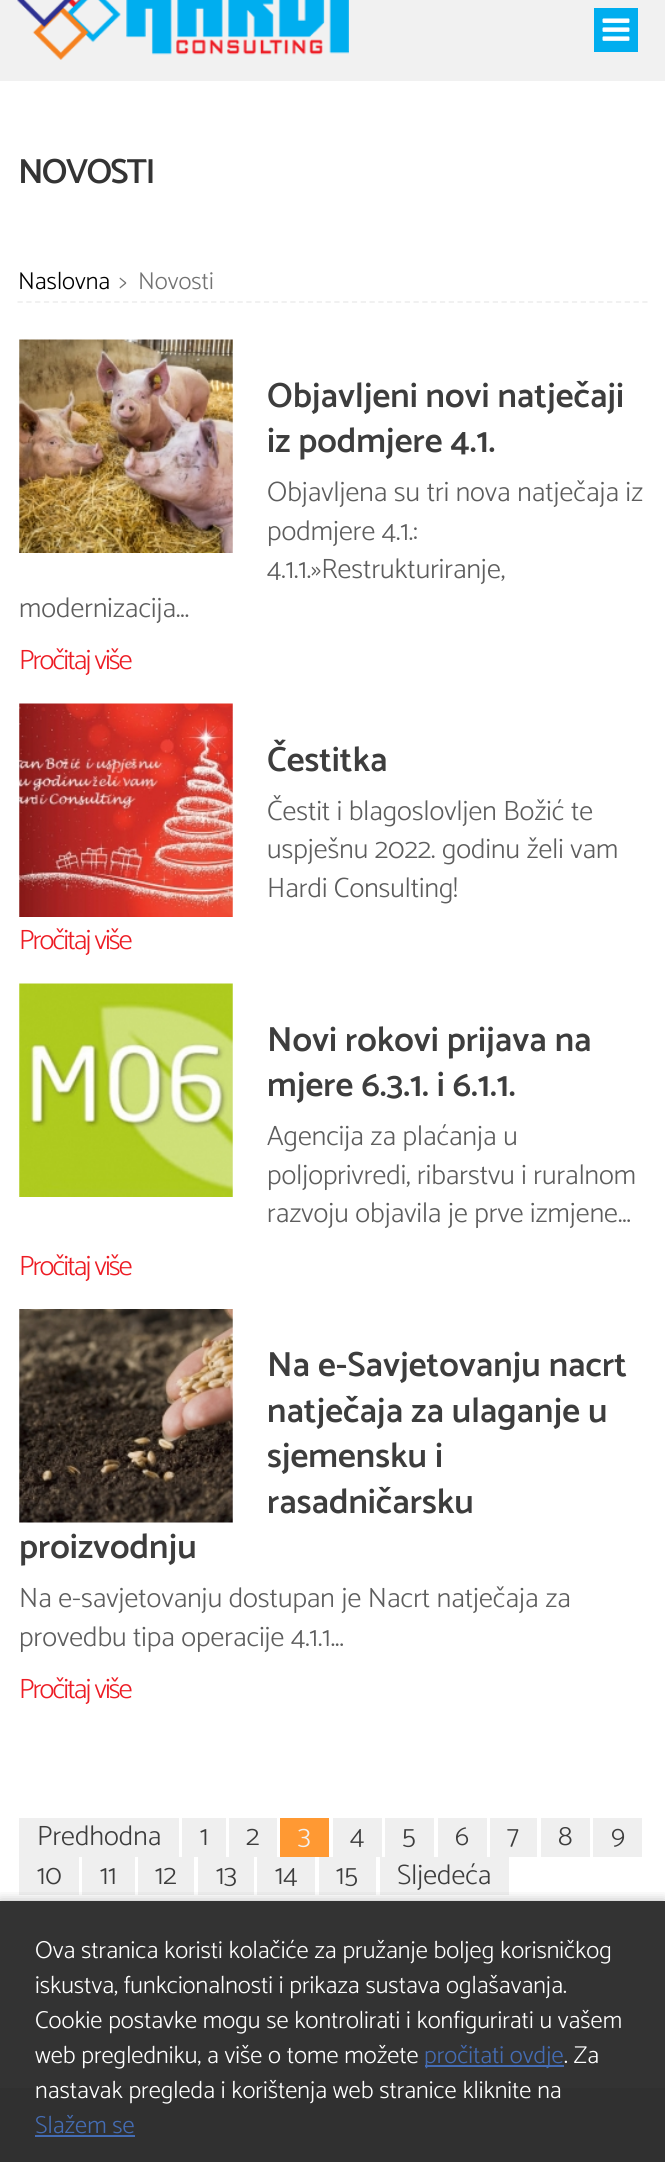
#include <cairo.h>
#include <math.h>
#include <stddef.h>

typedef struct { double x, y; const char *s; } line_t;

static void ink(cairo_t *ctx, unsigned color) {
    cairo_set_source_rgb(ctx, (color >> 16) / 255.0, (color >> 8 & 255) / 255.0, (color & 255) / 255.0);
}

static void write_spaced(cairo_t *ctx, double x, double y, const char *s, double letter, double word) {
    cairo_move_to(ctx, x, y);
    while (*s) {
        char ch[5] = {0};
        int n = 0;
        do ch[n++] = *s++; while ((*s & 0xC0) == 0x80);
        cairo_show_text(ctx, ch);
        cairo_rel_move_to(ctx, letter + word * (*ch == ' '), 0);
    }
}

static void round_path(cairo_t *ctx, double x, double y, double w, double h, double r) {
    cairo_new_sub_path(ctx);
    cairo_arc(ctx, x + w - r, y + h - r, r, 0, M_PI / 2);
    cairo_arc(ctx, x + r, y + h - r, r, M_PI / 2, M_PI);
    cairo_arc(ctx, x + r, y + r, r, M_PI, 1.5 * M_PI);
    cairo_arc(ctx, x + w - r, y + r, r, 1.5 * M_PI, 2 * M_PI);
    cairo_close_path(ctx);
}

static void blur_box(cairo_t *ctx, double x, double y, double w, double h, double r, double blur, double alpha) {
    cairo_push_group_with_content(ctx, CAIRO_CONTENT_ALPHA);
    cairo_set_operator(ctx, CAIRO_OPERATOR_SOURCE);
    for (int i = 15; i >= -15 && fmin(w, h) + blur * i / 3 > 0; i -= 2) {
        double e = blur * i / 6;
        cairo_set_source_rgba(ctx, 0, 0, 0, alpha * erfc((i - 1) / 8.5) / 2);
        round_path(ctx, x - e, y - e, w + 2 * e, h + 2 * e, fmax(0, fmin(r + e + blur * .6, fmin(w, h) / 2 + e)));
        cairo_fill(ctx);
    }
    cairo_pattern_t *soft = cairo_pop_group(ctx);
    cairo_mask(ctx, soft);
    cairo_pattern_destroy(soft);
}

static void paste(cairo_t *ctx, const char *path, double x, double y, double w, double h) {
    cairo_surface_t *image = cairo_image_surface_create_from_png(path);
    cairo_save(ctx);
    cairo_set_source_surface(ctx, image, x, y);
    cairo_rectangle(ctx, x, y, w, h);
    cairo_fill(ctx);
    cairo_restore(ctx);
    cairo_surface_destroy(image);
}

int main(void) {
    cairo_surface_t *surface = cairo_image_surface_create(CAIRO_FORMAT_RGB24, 665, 2162);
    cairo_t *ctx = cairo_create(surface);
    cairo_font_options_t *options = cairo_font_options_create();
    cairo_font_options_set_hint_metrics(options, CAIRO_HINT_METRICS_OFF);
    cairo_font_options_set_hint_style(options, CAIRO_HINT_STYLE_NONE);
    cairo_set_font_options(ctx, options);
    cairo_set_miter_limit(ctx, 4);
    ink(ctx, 0xF1F1F1);
    cairo_paint(ctx);
    paste(ctx, "media/1.png", 17, 0, 332, 60);
    paste(ctx, "media/2.png", 594, 8, 44, 44);
    ink(ctx, 0xFFFFFF);
    cairo_rectangle(ctx, 0, 81, 665, 1820);
    cairo_fill(ctx);
    ink(ctx, 0x333333);
    cairo_rectangle(ctx, 0, 1901, 665, 187);
    cairo_fill(ctx);
    cairo_select_font_face(ctx, "Catamaran SemiBold", CAIRO_FONT_SLANT_NORMAL, CAIRO_FONT_WEIGHT_NORMAL);
    cairo_set_font_size(ctx, 35);
    ink(ctx, 0x343434);
    write_spaced(ctx, 18, 183, "NOVOSTI", -1.75, 0);
    cairo_new_path(ctx);
    cairo_move_to(ctx, 17.5, 302);
    cairo_line_to(ctx, 647.5, 302);
    ink(ctx, 0xEFEFEF);
    cairo_set_line_width(ctx, 1.8);
    cairo_set_dash(ctx, (double[]){5.25, 3.55}, 2, 0);
    cairo_stroke(ctx);
    cairo_select_font_face(ctx, "Catamaran Light", CAIRO_FONT_SLANT_NORMAL, CAIRO_FONT_WEIGHT_NORMAL);
    cairo_set_font_size(ctx, 24.5);
    ink(ctx, 0x000000);
    cairo_move_to(ctx, 18, 289);
    cairo_show_text(ctx, "Naslovna");
    ink(ctx, 0x727272);
    cairo_move_to(ctx, 119, 289);
    cairo_show_text(ctx, ">");
    cairo_move_to(ctx, 138, 289);
    cairo_show_text(ctx, "Novosti");
    paste(ctx, "media/3.png", 19, 339, 214, 214);
    cairo_select_font_face(ctx, "Catamaran SemiBold", CAIRO_FONT_SLANT_NORMAL, CAIRO_FONT_WEIGHT_NORMAL);
    cairo_set_font_size(ctx, 35);
    ink(ctx, 0x3D3D3D);
    cairo_move_to(ctx, 267, 407);
    cairo_show_text(ctx, "Objavljeni novi natječaji");
    cairo_move_to(ctx, 267, 452);
    cairo_show_text(ctx, "iz podmjere 4.1.");
    cairo_select_font_face(ctx, "Catamaran Light", CAIRO_FONT_SLANT_NORMAL, CAIRO_FONT_WEIGHT_NORMAL);
    cairo_set_font_size(ctx, 28);
    ink(ctx, 0x5D5D5D);
    {
        static const line_t items[] = {
            {267, 501, "Objavljena su tri nova natječaja iz"},
            {267, 540, "podmjere 4.1.:"},
            {267, 578, "4.1.1.»Restrukturiranje,"},
            {19, 617, "modernizacija..."},
        };
        for (size_t i = 0; i < sizeof items / sizeof *items; i++) {
            cairo_move_to(ctx, items[i].x, items[i].y);
            cairo_show_text(ctx, items[i].s);
        }
    }
    ink(ctx, 0xED1C24);
    write_spaced(ctx, 19, 669, "Pročitaj više", -1.75, 0);
    paste(ctx, "media/4.png", 19, 703, 214, 214);
    cairo_select_font_face(ctx, "Catamaran SemiBold", CAIRO_FONT_SLANT_NORMAL, CAIRO_FONT_WEIGHT_NORMAL);
    cairo_set_font_size(ctx, 35);
    ink(ctx, 0x3D3D3D);
    cairo_move_to(ctx, 267, 771);
    cairo_show_text(ctx, "Čestitka");
    cairo_select_font_face(ctx, "Catamaran Light", CAIRO_FONT_SLANT_NORMAL, CAIRO_FONT_WEIGHT_NORMAL);
    cairo_set_font_size(ctx, 28);
    ink(ctx, 0x5D5D5D);
    {
        static const line_t items[] = {
            {267, 820, "Čestit i blagoslovljen Božić te"},
            {267, 858, "uspješnu 2022. godinu želi vam"},
            {267, 897, "Hardi Consulting!"},
        };
        for (size_t i = 0; i < sizeof items / sizeof *items; i++) {
            cairo_move_to(ctx, items[i].x, items[i].y);
            cairo_show_text(ctx, items[i].s);
        }
    }
    ink(ctx, 0xED1C24);
    write_spaced(ctx, 19, 949, "Pročitaj više", -1.75, 0);
    paste(ctx, "media/5.png", 19, 983, 214, 214);
    cairo_select_font_face(ctx, "Catamaran SemiBold", CAIRO_FONT_SLANT_NORMAL, CAIRO_FONT_WEIGHT_NORMAL);
    cairo_set_font_size(ctx, 35);
    ink(ctx, 0x3D3D3D);
    cairo_move_to(ctx, 267, 1051);
    cairo_show_text(ctx, "Novi rokovi prijava na");
    cairo_move_to(ctx, 267, 1096);
    cairo_show_text(ctx, "mjere 6.3.1. i 6.1.1.");
    cairo_select_font_face(ctx, "Catamaran Light", CAIRO_FONT_SLANT_NORMAL, CAIRO_FONT_WEIGHT_NORMAL);
    cairo_set_font_size(ctx, 28);
    ink(ctx, 0x5D5D5D);
    {
        static const line_t items[] = {
            {267, 1145, "Agencija za plaćanja u"},
            {267, 1184, "poljoprivredi, ribarstvu i ruralnom"},
            {267, 1222, "razvoju objavila je prve izmjene..."},
        };
        for (size_t i = 0; i < sizeof items / sizeof *items; i++) {
            cairo_move_to(ctx, items[i].x, items[i].y);
            cairo_show_text(ctx, items[i].s);
        }
    }
    ink(ctx, 0xED1C24);
    write_spaced(ctx, 19, 1275, "Pročitaj više", -1.75, 0);
    paste(ctx, "media/6.png", 19, 1309, 214, 214);
    cairo_select_font_face(ctx, "Catamaran SemiBold", CAIRO_FONT_SLANT_NORMAL, CAIRO_FONT_WEIGHT_NORMAL);
    cairo_set_font_size(ctx, 35);
    ink(ctx, 0x3D3D3D);
    {
        static const line_t items[] = {
            {267, 1376, "Na e-Savjetovanju nacrt"},
            {267, 1422, "natječaja za ulaganje u"},
            {267, 1467, "sjemensku i"},
            {267, 1513, "rasadničarsku"},
            {19, 1558, "proizvodnju"},
        };
        for (size_t i = 0; i < sizeof items / sizeof *items; i++) {
            cairo_move_to(ctx, items[i].x, items[i].y);
            cairo_show_text(ctx, items[i].s);
        }
    }
    cairo_select_font_face(ctx, "Catamaran Light", CAIRO_FONT_SLANT_NORMAL, CAIRO_FONT_WEIGHT_NORMAL);
    cairo_set_font_size(ctx, 28);
    ink(ctx, 0x5D5D5D);
    cairo_move_to(ctx, 19, 1607);
    cairo_show_text(ctx, "Na e-savjetovanju dostupan je Nacrt natječaja za");
    cairo_move_to(ctx, 19, 1646);
    cairo_show_text(ctx, "provedbu tipa operacije 4.1.1...");
    ink(ctx, 0xED1C24);
    write_spaced(ctx, 19, 1698, "Pročitaj više", -1.75, 0);
    ink(ctx, 0xEFEFEF);
    cairo_rectangle(ctx, 19, 1818, 160, 39);
    cairo_fill(ctx);
    ink(ctx, 0x3D3D3D);
    cairo_move_to(ctx, 37, 1845);
    cairo_show_text(ctx, "Predhodna");
    ink(ctx, 0xEFEFEF);
    cairo_rectangle(ctx, 182, 1818, 44, 39);
    cairo_fill(ctx);
    ink(ctx, 0x3D3D3D);
    cairo_move_to(ctx, 200, 1845);
    cairo_show_text(ctx, "1");
    ink(ctx, 0xEFEFEF);
    cairo_rectangle(ctx, 229, 1818, 48, 39);
    cairo_fill(ctx);
    ink(ctx, 0x3D3D3D);
    cairo_move_to(ctx, 246, 1845);
    cairo_show_text(ctx, "2");
    ink(ctx, 0xFF9933);
    cairo_rectangle(ctx, 280, 1818, 49, 39);
    cairo_fill(ctx);
    ink(ctx, 0xF1F1F1);
    cairo_move_to(ctx, 298, 1845);
    cairo_show_text(ctx, "3");
    ink(ctx, 0xEFEFEF);
    cairo_rectangle(ctx, 333, 1818, 49, 39);
    cairo_fill(ctx);
    ink(ctx, 0x3D3D3D);
    cairo_move_to(ctx, 350, 1845);
    cairo_show_text(ctx, "4");
    ink(ctx, 0xEFEFEF);
    cairo_rectangle(ctx, 385, 1818, 49, 39);
    cairo_fill(ctx);
    ink(ctx, 0x3D3D3D);
    cairo_move_to(ctx, 402, 1845);
    cairo_show_text(ctx, "5");
    ink(ctx, 0xEFEFEF);
    cairo_rectangle(ctx, 438, 1818, 49, 39);
    cairo_fill(ctx);
    ink(ctx, 0x3D3D3D);
    cairo_move_to(ctx, 455, 1845);
    cairo_show_text(ctx, "6");
    ink(ctx, 0xEFEFEF);
    cairo_rectangle(ctx, 490, 1818, 47, 39);
    cairo_fill(ctx);
    ink(ctx, 0x3D3D3D);
    cairo_move_to(ctx, 507, 1845);
    cairo_show_text(ctx, "7");
    ink(ctx, 0xEFEFEF);
    cairo_rectangle(ctx, 541, 1818, 49, 39);
    cairo_fill(ctx);
    ink(ctx, 0x3D3D3D);
    cairo_move_to(ctx, 558, 1845);
    cairo_show_text(ctx, "8");
    ink(ctx, 0xEFEFEF);
    cairo_rectangle(ctx, 593, 1818, 49, 39);
    cairo_fill(ctx);
    ink(ctx, 0x3D3D3D);
    cairo_move_to(ctx, 611, 1845);
    cairo_show_text(ctx, "9");
    ink(ctx, 0xEFEFEF);
    cairo_rectangle(ctx, 19, 1857, 60, 38);
    cairo_fill(ctx);
    ink(ctx, 0x3D3D3D);
    cairo_move_to(ctx, 37, 1884);
    cairo_show_text(ctx, "10");
    ink(ctx, 0xEFEFEF);
    cairo_rectangle(ctx, 82, 1857, 53, 38);
    cairo_fill(ctx);
    ink(ctx, 0x3D3D3D);
    cairo_move_to(ctx, 100, 1884);
    cairo_show_text(ctx, "11");
    ink(ctx, 0xEFEFEF);
    cairo_rectangle(ctx, 138, 1857, 56, 38);
    cairo_fill(ctx);
    ink(ctx, 0x3D3D3D);
    cairo_move_to(ctx, 155, 1884);
    cairo_show_text(ctx, "12");
    ink(ctx, 0xEFEFEF);
    cairo_rectangle(ctx, 198, 1857, 56, 38);
    cairo_fill(ctx);
    ink(ctx, 0x3D3D3D);
    cairo_move_to(ctx, 216, 1884);
    cairo_show_text(ctx, "13");
    ink(ctx, 0xEFEFEF);
    cairo_rectangle(ctx, 257, 1857, 58, 38);
    cairo_fill(ctx);
    ink(ctx, 0x3D3D3D);
    cairo_move_to(ctx, 275, 1884);
    cairo_show_text(ctx, "14");
    ink(ctx, 0xEFEFEF);
    cairo_rectangle(ctx, 319, 1857, 57, 38);
    cairo_fill(ctx);
    ink(ctx, 0x3D3D3D);
    cairo_move_to(ctx, 336, 1884);
    cairo_show_text(ctx, "15");
    ink(ctx, 0xEFEFEF);
    cairo_rectangle(ctx, 380, 1857, 129, 38);
    cairo_fill(ctx);
    ink(ctx, 0x3D3D3D);
    cairo_move_to(ctx, 397, 1884);
    cairo_show_text(ctx, "Sljedeća");
    ink(ctx, 0x303030);
    cairo_rectangle(ctx, 0, 2088, 665, 74);
    cairo_fill(ctx);
    cairo_save(ctx);
    cairo_rectangle(ctx, 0, 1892, 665, 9);
    cairo_clip(ctx);
    ink(ctx, 0x000000);
    blur_box(ctx, 0, 1901, 665, 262, 0, 6, 0.28);
    cairo_restore(ctx);
    cairo_set_font_size(ctx, 24.5);
    ink(ctx, 0xFFFFFF);
    {
        static const line_t items[] = {
            {35, 1958, "Ova stranica koristi kolačiće za pružanje boljeg korisničkog"},
            {35, 1993, "iskustva, funkcionalnosti i prikaza sustava oglašavanja."},
            {35, 2028, "Cookie postavke mogu se kontrolirati i konfigurirati u vašem"},
            {35, 2063, "web pregledniku, a više o tome možete"},
        };
        for (size_t i = 0; i < sizeof items / sizeof *items; i++) {
            cairo_move_to(ctx, items[i].x, items[i].y);
            cairo_show_text(ctx, items[i].s);
        }
    }
    ink(ctx, 0x446CB3);
    cairo_rectangle(ctx, 425, 2065, 139, 2);
    cairo_fill(ctx);
    cairo_move_to(ctx, 424, 2063);
    cairo_show_text(ctx, "pročitati ovdje");
    ink(ctx, 0xFFFFFF);
    cairo_move_to(ctx, 564, 2063);
    cairo_show_text(ctx, ". Za");
    cairo_move_to(ctx, 35, 2098);
    cairo_show_text(ctx, "nastavak pregleda i korištenja web stranice kliknite na");
    ink(ctx, 0x446CB3);
    cairo_move_to(ctx, 35, 2133);
    cairo_show_text(ctx, "Slažem se");
    cairo_rectangle(ctx, 35, 2135, 100, 2);
    cairo_fill(ctx);
    cairo_surface_write_to_png(surface, "image.png");
    cairo_font_options_destroy(options);
    cairo_destroy(ctx);
    cairo_surface_destroy(surface);
    return 0;
}
